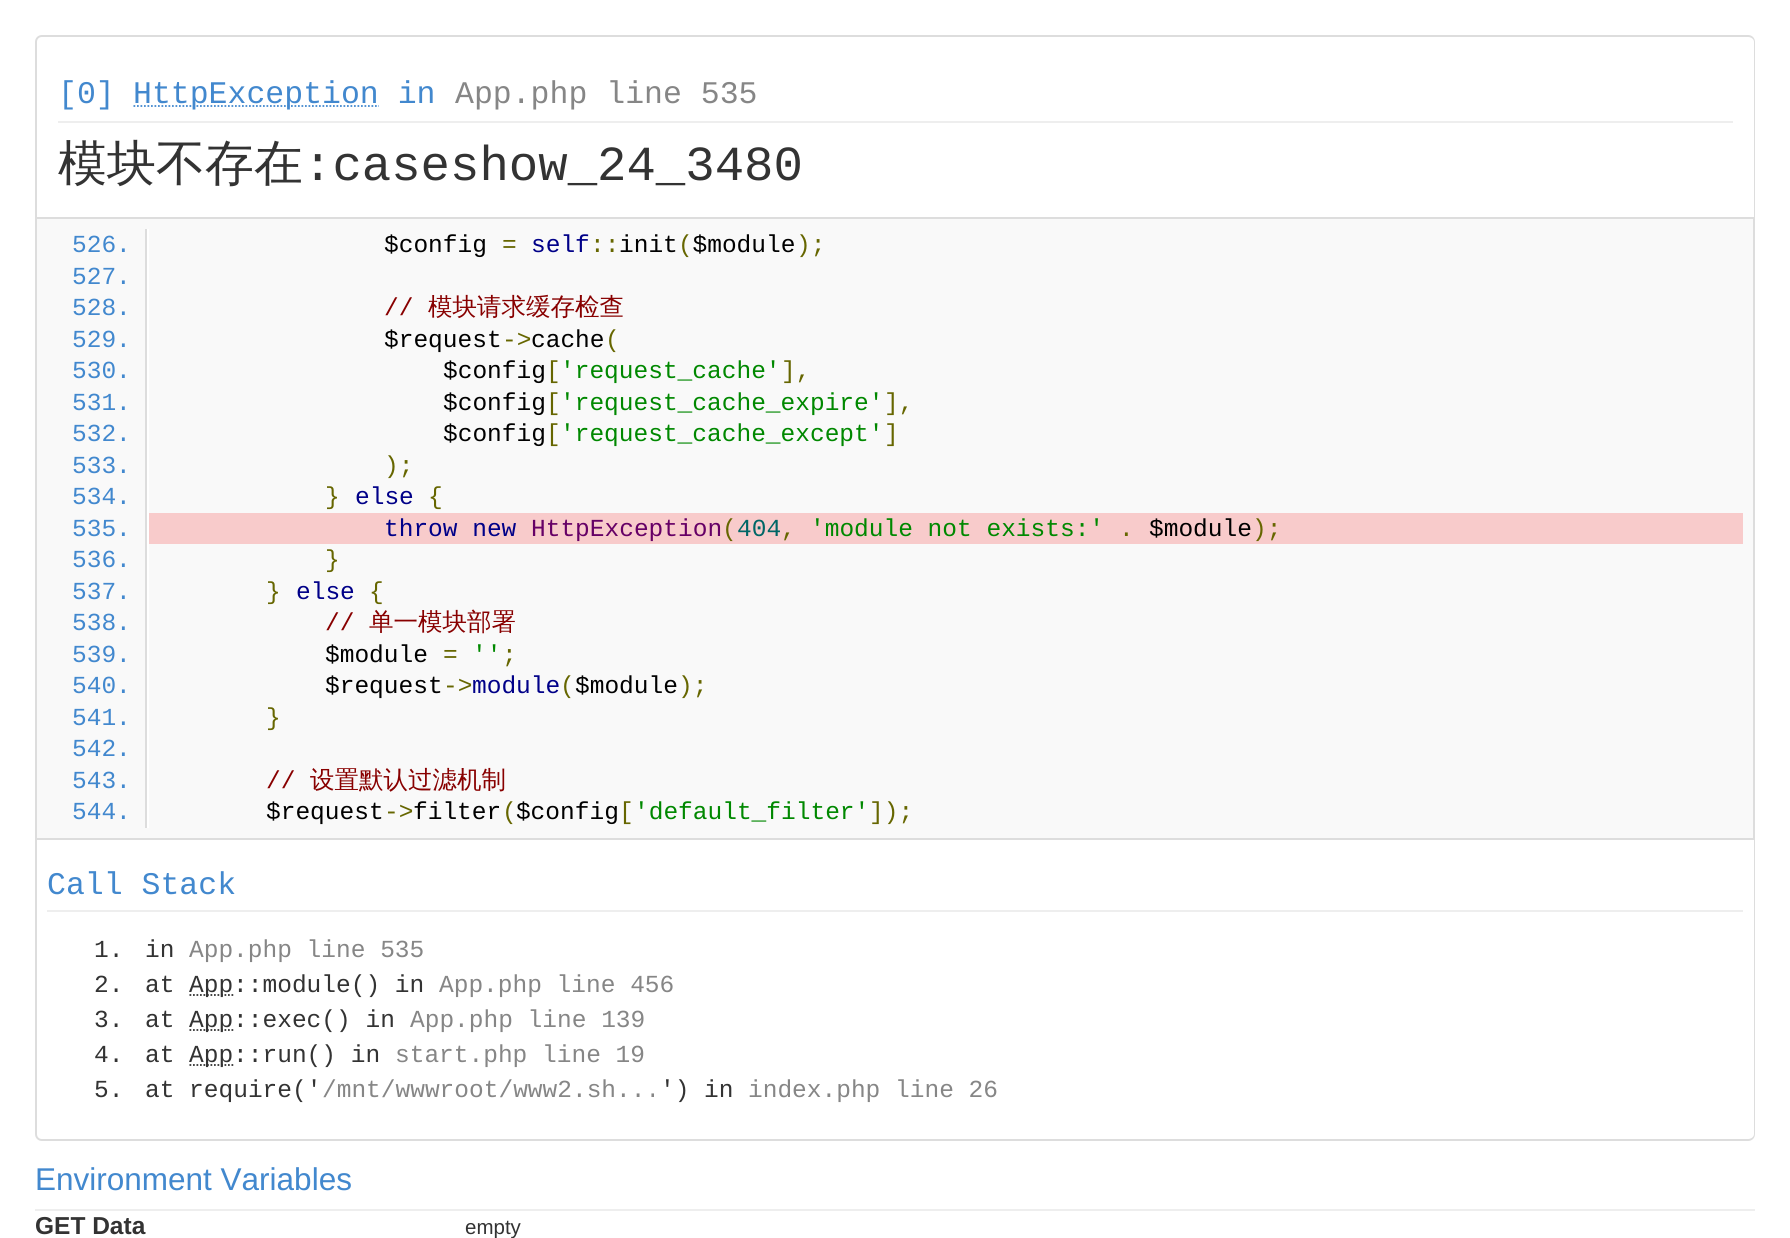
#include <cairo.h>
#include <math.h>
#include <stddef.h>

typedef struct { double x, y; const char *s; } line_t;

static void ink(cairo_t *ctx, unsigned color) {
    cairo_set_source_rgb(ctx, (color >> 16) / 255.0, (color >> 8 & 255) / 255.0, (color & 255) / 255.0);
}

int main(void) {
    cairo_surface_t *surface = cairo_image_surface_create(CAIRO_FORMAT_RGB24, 1790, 1238);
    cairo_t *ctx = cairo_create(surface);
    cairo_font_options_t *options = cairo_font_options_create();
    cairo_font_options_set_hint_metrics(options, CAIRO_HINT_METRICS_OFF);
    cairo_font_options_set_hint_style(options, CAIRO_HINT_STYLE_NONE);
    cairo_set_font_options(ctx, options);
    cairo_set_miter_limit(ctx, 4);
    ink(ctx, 0xFFFFFF);
    cairo_paint(ctx);
    ink(ctx, 0xDDDDDD);
    cairo_set_fill_rule(ctx, CAIRO_FILL_RULE_EVEN_ODD);
    cairo_new_path(ctx);
    cairo_move_to(ctx, 42, 35);
    cairo_line_to(ctx, 1748, 35);
    cairo_curve_to(ctx, 1752, 35, 1755, 38, 1755, 42);
    cairo_line_to(ctx, 1755, 217);
    cairo_line_to(ctx, 35, 217);
    cairo_line_to(ctx, 35, 42);
    cairo_curve_to(ctx, 35, 38, 38, 35, 42, 35);
    cairo_close_path(ctx);
    cairo_move_to(ctx, 42, 37);
    cairo_line_to(ctx, 1748, 37);
    cairo_curve_to(ctx, 1751, 37, 1754, 39, 1754, 42);
    cairo_line_to(ctx, 1754, 217);
    cairo_line_to(ctx, 37, 217);
    cairo_line_to(ctx, 37, 42);
    cairo_curve_to(ctx, 37, 39, 39, 37, 42, 37);
    cairo_close_path(ctx);
    cairo_fill(ctx);
    ink(ctx, 0xEEEEEE);
    cairo_rectangle(ctx, 58, 121, 1675, 2);
    cairo_fill(ctx);
    cairo_select_font_face(ctx, "Liberation Mono", CAIRO_FONT_SLANT_NORMAL, CAIRO_FONT_WEIGHT_NORMAL);
    cairo_set_font_size(ctx, 31.5);
    ink(ctx, 0x4288CE);
    cairo_move_to(ctx, 58, 103);
    cairo_show_text(ctx, "[0]");
    cairo_new_path(ctx);
    cairo_move_to(ctx, 133.5, 106);
    cairo_line_to(ctx, 379, 106);
    cairo_set_line_width(ctx, 1.8);
    cairo_set_dash(ctx, (double[]){1.75, 1.75}, 2, 0);
    cairo_stroke(ctx);
    cairo_move_to(ctx, 133, 103);
    cairo_show_text(ctx, "HttpException in");
    ink(ctx, 0x868686);
    cairo_move_to(ctx, 455, 103);
    cairo_show_text(ctx, "App.php line 535");
    cairo_select_font_face(ctx, "WenQuanYi Zen Hei Medium", CAIRO_FONT_SLANT_NORMAL, CAIRO_FONT_WEIGHT_NORMAL);
    cairo_set_font_size(ctx, 49);
    ink(ctx, 0x333333);
    cairo_move_to(ctx, 58, 180);
    cairo_show_text(ctx, "模块不存在");
    cairo_select_font_face(ctx, "Liberation Mono", CAIRO_FONT_SLANT_NORMAL, CAIRO_FONT_WEIGHT_NORMAL);
    cairo_move_to(ctx, 303, 180);
    cairo_show_text(ctx, ":caseshow_24_3480");
    ink(ctx, 0xF9F9F9);
    cairo_rectangle(ctx, 36, 218, 1718, 621);
    cairo_fill_preserve(ctx);
    ink(ctx, 0xDDDDDD);
    cairo_set_line_width(ctx, 2);
    cairo_set_dash(ctx, NULL, 0, 0);
    cairo_stroke(ctx);
    cairo_rectangle(ctx, 145, 229, 2, 599);
    cairo_fill(ctx);
    cairo_set_font_size(ctx, 24.5);
    ink(ctx, 0x4288CE);
    cairo_move_to(ctx, 72, 252);
    cairo_show_text(ctx, "526.");
    ink(ctx, 0xFFFFFF);
    cairo_rectangle(ctx, 147, 229, 2, 599);
    cairo_fill(ctx);
    ink(ctx, 0x000000);
    cairo_move_to(ctx, 384, 252);
    cairo_show_text(ctx, "$config");
    ink(ctx, 0x000088);
    cairo_move_to(ctx, 531, 252);
    cairo_show_text(ctx, "self");
    ink(ctx, 0x000000);
    cairo_move_to(ctx, 619, 252);
    cairo_show_text(ctx, "init $module");
    ink(ctx, 0x666600);
    {
        static const line_t items[] = {
            {502, 252, "="},
            {590, 252, "::"},
            {678, 252, "("},
            {796, 252, ");"},
        };
        for (size_t i = 0; i < sizeof items / sizeof *items; i++) {
            cairo_move_to(ctx, items[i].x, items[i].y);
            cairo_show_text(ctx, items[i].s);
        }
    }
    ink(ctx, 0x4288CE);
    cairo_move_to(ctx, 72, 284);
    cairo_show_text(ctx, "527.");
    cairo_move_to(ctx, 72, 315);
    cairo_show_text(ctx, "528.");
    ink(ctx, 0x880000);
    cairo_move_to(ctx, 384, 315);
    cairo_show_text(ctx, "//");
    cairo_select_font_face(ctx, "WenQuanYi Zen Hei Medium", CAIRO_FONT_SLANT_NORMAL, CAIRO_FONT_WEIGHT_NORMAL);
    cairo_move_to(ctx, 428, 315);
    cairo_show_text(ctx, "模块请求缓存检查");
    cairo_select_font_face(ctx, "Liberation Mono", CAIRO_FONT_SLANT_NORMAL, CAIRO_FONT_WEIGHT_NORMAL);
    ink(ctx, 0x4288CE);
    cairo_move_to(ctx, 72, 347);
    cairo_show_text(ctx, "529.");
    ink(ctx, 0x000000);
    cairo_move_to(ctx, 384, 347);
    cairo_show_text(ctx, "$request");
    ink(ctx, 0x666600);
    cairo_move_to(ctx, 502, 347);
    cairo_show_text(ctx, "->");
    ink(ctx, 0x000000);
    cairo_move_to(ctx, 531, 347);
    cairo_show_text(ctx, "cache");
    ink(ctx, 0x666600);
    cairo_move_to(ctx, 605, 347);
    cairo_show_text(ctx, "(");
    ink(ctx, 0x4288CE);
    cairo_move_to(ctx, 72, 378);
    cairo_show_text(ctx, "530.");
    ink(ctx, 0x000000);
    cairo_move_to(ctx, 443, 378);
    cairo_show_text(ctx, "$config");
    ink(ctx, 0x666600);
    cairo_move_to(ctx, 546, 378);
    cairo_show_text(ctx, "[");
    ink(ctx, 0x008800);
    cairo_move_to(ctx, 560, 378);
    cairo_show_text(ctx, "'request_cache'");
    ink(ctx, 0x666600);
    cairo_move_to(ctx, 781, 378);
    cairo_show_text(ctx, "],");
    ink(ctx, 0x4288CE);
    cairo_move_to(ctx, 72, 410);
    cairo_show_text(ctx, "531.");
    ink(ctx, 0x000000);
    cairo_move_to(ctx, 443, 410);
    cairo_show_text(ctx, "$config");
    ink(ctx, 0x666600);
    cairo_move_to(ctx, 546, 410);
    cairo_show_text(ctx, "[");
    ink(ctx, 0x008800);
    cairo_move_to(ctx, 560, 410);
    cairo_show_text(ctx, "'request_cache_expire'");
    ink(ctx, 0x666600);
    cairo_move_to(ctx, 884, 410);
    cairo_show_text(ctx, "],");
    ink(ctx, 0x4288CE);
    cairo_move_to(ctx, 72, 441);
    cairo_show_text(ctx, "532.");
    ink(ctx, 0x000000);
    cairo_move_to(ctx, 443, 441);
    cairo_show_text(ctx, "$config");
    ink(ctx, 0x666600);
    cairo_move_to(ctx, 546, 441);
    cairo_show_text(ctx, "[");
    ink(ctx, 0x008800);
    cairo_move_to(ctx, 560, 441);
    cairo_show_text(ctx, "'request_cache_except'");
    ink(ctx, 0x666600);
    cairo_move_to(ctx, 884, 441);
    cairo_show_text(ctx, "]");
    ink(ctx, 0x4288CE);
    cairo_move_to(ctx, 72, 473);
    cairo_show_text(ctx, "533.");
    ink(ctx, 0x666600);
    cairo_move_to(ctx, 384, 473);
    cairo_show_text(ctx, ");");
    ink(ctx, 0x4288CE);
    cairo_move_to(ctx, 72, 504);
    cairo_show_text(ctx, "534.");
    ink(ctx, 0x666600);
    cairo_move_to(ctx, 325, 504);
    cairo_show_text(ctx, "}");
    ink(ctx, 0x000088);
    cairo_move_to(ctx, 355, 504);
    cairo_show_text(ctx, "else");
    ink(ctx, 0x666600);
    cairo_move_to(ctx, 428, 504);
    cairo_show_text(ctx, "{");
    ink(ctx, 0xF8CBCB);
    cairo_rectangle(ctx, 149, 513, 1594, 31);
    cairo_fill(ctx);
    ink(ctx, 0x4288CE);
    cairo_move_to(ctx, 72, 536);
    cairo_show_text(ctx, "535.");
    ink(ctx, 0x000088);
    cairo_move_to(ctx, 384, 536);
    cairo_show_text(ctx, "throw new");
    ink(ctx, 0x660066);
    cairo_move_to(ctx, 531, 536);
    cairo_show_text(ctx, "HttpException");
    ink(ctx, 0x666600);
    cairo_move_to(ctx, 722, 536);
    cairo_show_text(ctx, "(");
    ink(ctx, 0x006666);
    cairo_move_to(ctx, 737, 536);
    cairo_show_text(ctx, "404");
    ink(ctx, 0x666600);
    cairo_move_to(ctx, 781, 536);
    cairo_show_text(ctx, ",");
    ink(ctx, 0x008800);
    cairo_move_to(ctx, 810, 536);
    cairo_show_text(ctx, "'module not exists:'");
    ink(ctx, 0x666600);
    cairo_move_to(ctx, 1119, 536);
    cairo_show_text(ctx, ".");
    ink(ctx, 0x000000);
    cairo_move_to(ctx, 1149, 536);
    cairo_show_text(ctx, "$module");
    ink(ctx, 0x666600);
    cairo_move_to(ctx, 1252, 536);
    cairo_show_text(ctx, ");");
    ink(ctx, 0x4288CE);
    cairo_move_to(ctx, 72, 567);
    cairo_show_text(ctx, "536.");
    ink(ctx, 0x666600);
    cairo_move_to(ctx, 325, 567);
    cairo_show_text(ctx, "}");
    ink(ctx, 0x4288CE);
    cairo_move_to(ctx, 72, 599);
    cairo_show_text(ctx, "537.");
    ink(ctx, 0x666600);
    cairo_move_to(ctx, 266, 599);
    cairo_show_text(ctx, "}");
    ink(ctx, 0x000088);
    cairo_move_to(ctx, 296, 599);
    cairo_show_text(ctx, "else");
    ink(ctx, 0x666600);
    cairo_move_to(ctx, 369, 599);
    cairo_show_text(ctx, "{");
    ink(ctx, 0x4288CE);
    cairo_move_to(ctx, 72, 630);
    cairo_show_text(ctx, "538.");
    ink(ctx, 0x880000);
    cairo_move_to(ctx, 325, 630);
    cairo_show_text(ctx, "//");
    cairo_select_font_face(ctx, "WenQuanYi Zen Hei Medium", CAIRO_FONT_SLANT_NORMAL, CAIRO_FONT_WEIGHT_NORMAL);
    cairo_move_to(ctx, 369, 630);
    cairo_show_text(ctx, "单一模块部署");
    cairo_select_font_face(ctx, "Liberation Mono", CAIRO_FONT_SLANT_NORMAL, CAIRO_FONT_WEIGHT_NORMAL);
    ink(ctx, 0x4288CE);
    cairo_move_to(ctx, 72, 662);
    cairo_show_text(ctx, "539.");
    ink(ctx, 0x000000);
    cairo_move_to(ctx, 325, 662);
    cairo_show_text(ctx, "$module");
    ink(ctx, 0x008800);
    cairo_move_to(ctx, 472, 662);
    cairo_show_text(ctx, "''");
    ink(ctx, 0x666600);
    cairo_move_to(ctx, 443, 662);
    cairo_show_text(ctx, "=");
    cairo_move_to(ctx, 502, 662);
    cairo_show_text(ctx, ";");
    ink(ctx, 0x4288CE);
    cairo_move_to(ctx, 72, 693);
    cairo_show_text(ctx, "540.");
    ink(ctx, 0x000000);
    cairo_move_to(ctx, 325, 693);
    cairo_show_text(ctx, "$request");
    ink(ctx, 0x666600);
    cairo_move_to(ctx, 443, 693);
    cairo_show_text(ctx, "->");
    ink(ctx, 0x000088);
    cairo_move_to(ctx, 472, 693);
    cairo_show_text(ctx, "module");
    ink(ctx, 0x666600);
    cairo_move_to(ctx, 560, 693);
    cairo_show_text(ctx, "(");
    ink(ctx, 0x000000);
    cairo_move_to(ctx, 575, 693);
    cairo_show_text(ctx, "$module");
    ink(ctx, 0x666600);
    cairo_move_to(ctx, 678, 693);
    cairo_show_text(ctx, ");");
    ink(ctx, 0x4288CE);
    cairo_move_to(ctx, 72, 725);
    cairo_show_text(ctx, "541.");
    ink(ctx, 0x666600);
    cairo_move_to(ctx, 266, 725);
    cairo_show_text(ctx, "}");
    ink(ctx, 0x4288CE);
    cairo_move_to(ctx, 72, 756);
    cairo_show_text(ctx, "542.");
    cairo_move_to(ctx, 72, 788);
    cairo_show_text(ctx, "543.");
    ink(ctx, 0x880000);
    cairo_move_to(ctx, 266, 788);
    cairo_show_text(ctx, "//");
    cairo_select_font_face(ctx, "WenQuanYi Zen Hei Medium", CAIRO_FONT_SLANT_NORMAL, CAIRO_FONT_WEIGHT_NORMAL);
    cairo_move_to(ctx, 310, 788);
    cairo_show_text(ctx, "设置默认过滤机制");
    cairo_select_font_face(ctx, "Liberation Mono", CAIRO_FONT_SLANT_NORMAL, CAIRO_FONT_WEIGHT_NORMAL);
    ink(ctx, 0x4288CE);
    cairo_move_to(ctx, 72, 819);
    cairo_show_text(ctx, "544.");
    ink(ctx, 0x000000);
    cairo_move_to(ctx, 266, 819);
    cairo_show_text(ctx, "$request");
    cairo_move_to(ctx, 413, 819);
    cairo_show_text(ctx, "filter $config");
    ink(ctx, 0x666600);
    {
        static const line_t items[] = {
            {384, 819, "->"},
            {502, 819, "("},
            {619, 819, "["},
        };
        for (size_t i = 0; i < sizeof items / sizeof *items; i++) {
            cairo_move_to(ctx, items[i].x, items[i].y);
            cairo_show_text(ctx, items[i].s);
        }
    }
    ink(ctx, 0x008800);
    cairo_move_to(ctx, 634, 819);
    cairo_show_text(ctx, "'default_filter'");
    ink(ctx, 0x666600);
    cairo_move_to(ctx, 869, 819);
    cairo_show_text(ctx, "]);");
    ink(ctx, 0xDDDDDD);
    cairo_new_path(ctx);
    cairo_move_to(ctx, 35, 840);
    cairo_line_to(ctx, 1755, 840);
    cairo_line_to(ctx, 1755, 1134);
    cairo_curve_to(ctx, 1755, 1138, 1752, 1141, 1748, 1141);
    cairo_line_to(ctx, 42, 1141);
    cairo_curve_to(ctx, 38, 1141, 35, 1138, 35, 1134);
    cairo_close_path(ctx);
    cairo_move_to(ctx, 37, 840);
    cairo_line_to(ctx, 1754, 840);
    cairo_line_to(ctx, 1754, 1134);
    cairo_curve_to(ctx, 1754, 1137, 1751, 1139, 1748, 1139);
    cairo_line_to(ctx, 42, 1139);
    cairo_curve_to(ctx, 39, 1139, 37, 1137, 37, 1134);
    cairo_close_path(ctx);
    cairo_fill(ctx);
    ink(ctx, 0xEEEEEE);
    cairo_rectangle(ctx, 47, 910, 1696, 2);
    cairo_fill(ctx);
    cairo_set_font_size(ctx, 31.5);
    ink(ctx, 0x4288CE);
    cairo_move_to(ctx, 47, 894);
    cairo_show_text(ctx, "Call Stack");
    cairo_set_font_size(ctx, 24.5);
    ink(ctx, 0x333333);
    cairo_move_to(ctx, 94, 957);
    cairo_show_text(ctx, "1.");
    cairo_move_to(ctx, 145, 957);
    cairo_show_text(ctx, "in");
    ink(ctx, 0x868686);
    cairo_move_to(ctx, 189, 957);
    cairo_show_text(ctx, "App.php line 535");
    ink(ctx, 0x333333);
    cairo_move_to(ctx, 94, 992);
    cairo_show_text(ctx, "2.");
    cairo_move_to(ctx, 145, 992);
    cairo_show_text(ctx, "at");
    cairo_new_path(ctx);
    cairo_move_to(ctx, 189.5, 995);
    cairo_line_to(ctx, 233.5, 995);
    cairo_set_line_width(ctx, 1.8);
    cairo_set_dash(ctx, (double[]){1.75, 1.75}, 2, 0);
    cairo_stroke(ctx);
    cairo_move_to(ctx, 189, 992);
    cairo_show_text(ctx, "App::module() in");
    ink(ctx, 0x868686);
    cairo_move_to(ctx, 439, 992);
    cairo_show_text(ctx, "App.php line 456");
    ink(ctx, 0x333333);
    cairo_move_to(ctx, 94, 1027);
    cairo_show_text(ctx, "3.");
    cairo_move_to(ctx, 145, 1027);
    cairo_show_text(ctx, "at");
    cairo_new_path(ctx);
    cairo_move_to(ctx, 189.5, 1030);
    cairo_line_to(ctx, 233.5, 1030);
    cairo_stroke(ctx);
    cairo_move_to(ctx, 189, 1027);
    cairo_show_text(ctx, "App::exec() in");
    ink(ctx, 0x868686);
    cairo_move_to(ctx, 410, 1027);
    cairo_show_text(ctx, "App.php line 139");
    ink(ctx, 0x333333);
    cairo_move_to(ctx, 94, 1062);
    cairo_show_text(ctx, "4.");
    cairo_move_to(ctx, 145, 1062);
    cairo_show_text(ctx, "at");
    cairo_new_path(ctx);
    cairo_move_to(ctx, 189.5, 1065);
    cairo_line_to(ctx, 233.5, 1065);
    cairo_stroke(ctx);
    cairo_move_to(ctx, 189, 1062);
    cairo_show_text(ctx, "App::run() in");
    ink(ctx, 0x868686);
    cairo_move_to(ctx, 395, 1062);
    cairo_show_text(ctx, "start.php line 19");
    ink(ctx, 0x333333);
    cairo_move_to(ctx, 94, 1097);
    cairo_show_text(ctx, "5.");
    cairo_move_to(ctx, 145, 1097);
    cairo_show_text(ctx, "at require('");
    ink(ctx, 0x868686);
    cairo_move_to(ctx, 322, 1097);
    cairo_show_text(ctx, "/mnt/wwwroot/www2.sh...");
    ink(ctx, 0x333333);
    cairo_move_to(ctx, 660, 1097);
    cairo_show_text(ctx, "') in");
    ink(ctx, 0x868686);
    cairo_move_to(ctx, 748, 1097);
    cairo_show_text(ctx, "index.php line 26");
    ink(ctx, 0xEEEEEE);
    cairo_rectangle(ctx, 35, 1209, 1720, 2);
    cairo_fill(ctx);
    cairo_select_font_face(ctx, "Liberation Sans", CAIRO_FONT_SLANT_NORMAL, CAIRO_FONT_WEIGHT_NORMAL);
    cairo_set_font_size(ctx, 31.5);
    ink(ctx, 0x4288CE);
    cairo_move_to(ctx, 35, 1190);
    cairo_show_text(ctx, "Environment Variables");
    cairo_select_font_face(ctx, "Liberation Sans", CAIRO_FONT_SLANT_NORMAL, CAIRO_FONT_WEIGHT_BOLD);
    cairo_set_font_size(ctx, 24.5);
    ink(ctx, 0x333333);
    cairo_move_to(ctx, 35, 1234);
    cairo_show_text(ctx, "GET Data");
    cairo_select_font_face(ctx, "Liberation Sans", CAIRO_FONT_SLANT_NORMAL, CAIRO_FONT_WEIGHT_NORMAL);
    cairo_set_font_size(ctx, 20.5);
    cairo_move_to(ctx, 465, 1234);
    cairo_show_text(ctx, "empty");
    cairo_surface_write_to_png(surface, "image.png");
    cairo_font_options_destroy(options);
    cairo_destroy(ctx);
    cairo_surface_destroy(surface);
    return 0;
}
